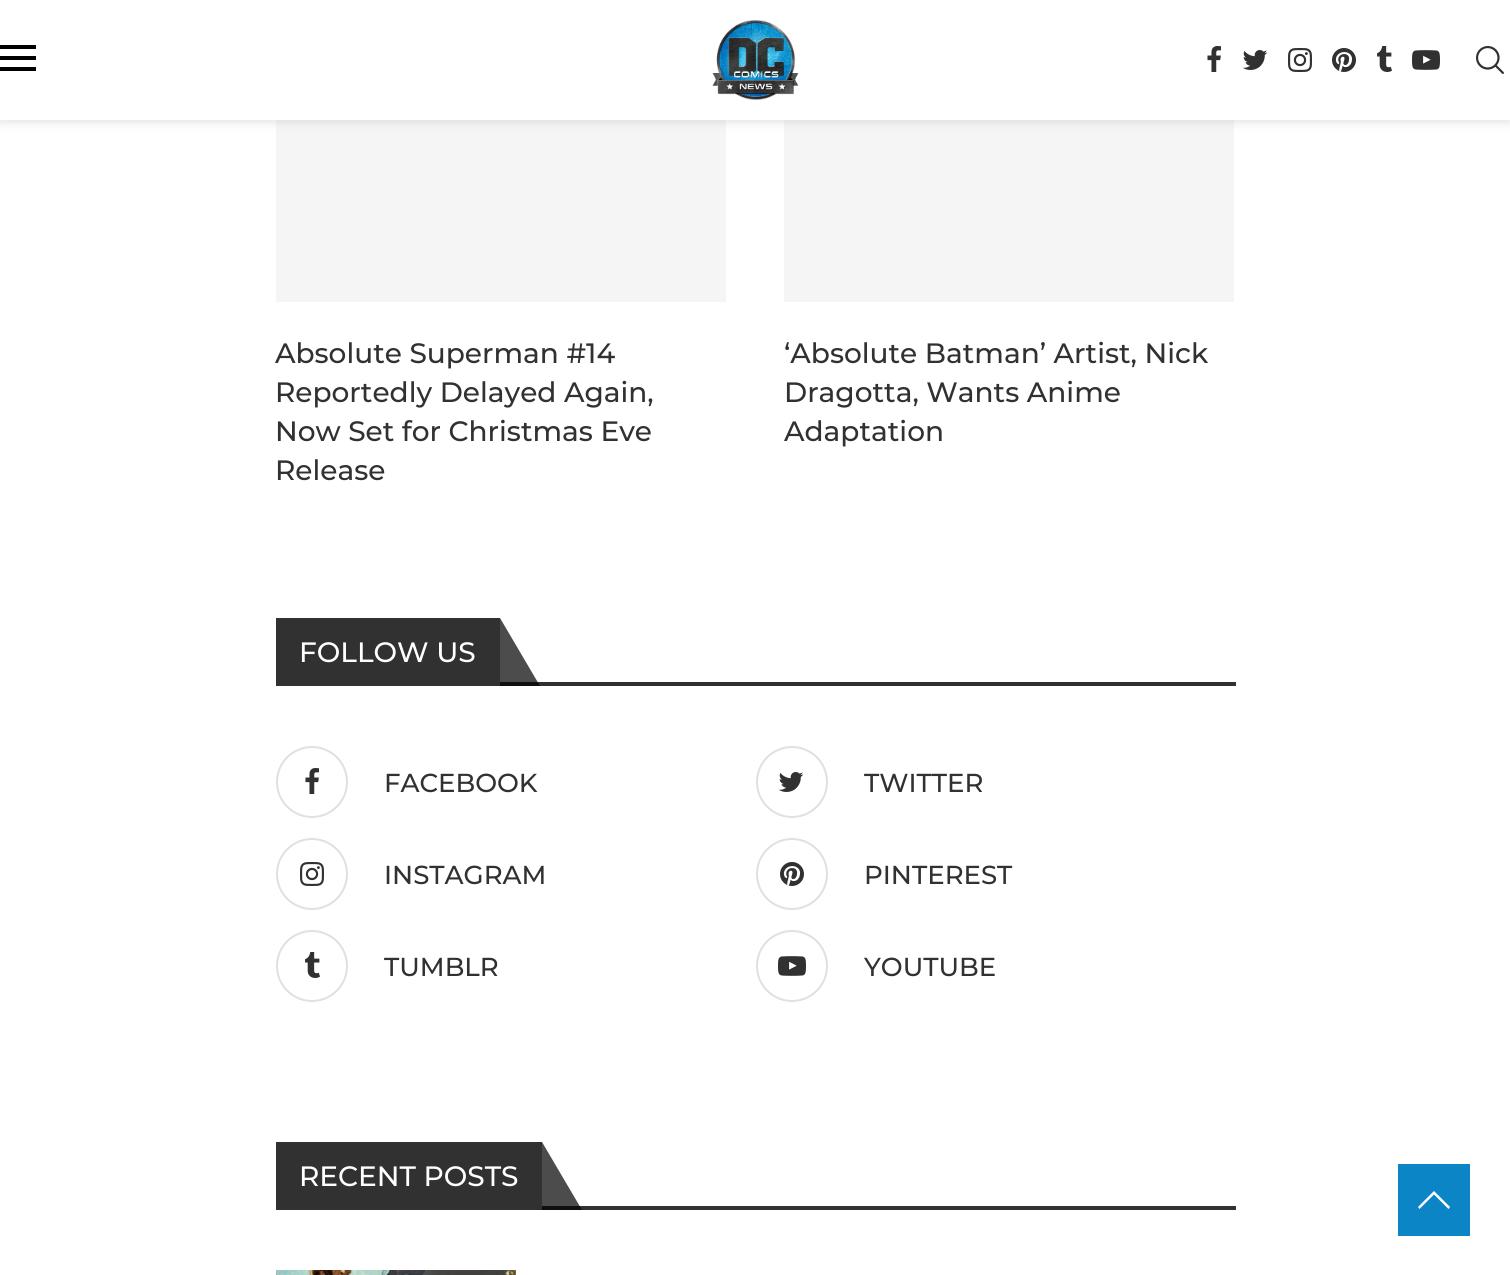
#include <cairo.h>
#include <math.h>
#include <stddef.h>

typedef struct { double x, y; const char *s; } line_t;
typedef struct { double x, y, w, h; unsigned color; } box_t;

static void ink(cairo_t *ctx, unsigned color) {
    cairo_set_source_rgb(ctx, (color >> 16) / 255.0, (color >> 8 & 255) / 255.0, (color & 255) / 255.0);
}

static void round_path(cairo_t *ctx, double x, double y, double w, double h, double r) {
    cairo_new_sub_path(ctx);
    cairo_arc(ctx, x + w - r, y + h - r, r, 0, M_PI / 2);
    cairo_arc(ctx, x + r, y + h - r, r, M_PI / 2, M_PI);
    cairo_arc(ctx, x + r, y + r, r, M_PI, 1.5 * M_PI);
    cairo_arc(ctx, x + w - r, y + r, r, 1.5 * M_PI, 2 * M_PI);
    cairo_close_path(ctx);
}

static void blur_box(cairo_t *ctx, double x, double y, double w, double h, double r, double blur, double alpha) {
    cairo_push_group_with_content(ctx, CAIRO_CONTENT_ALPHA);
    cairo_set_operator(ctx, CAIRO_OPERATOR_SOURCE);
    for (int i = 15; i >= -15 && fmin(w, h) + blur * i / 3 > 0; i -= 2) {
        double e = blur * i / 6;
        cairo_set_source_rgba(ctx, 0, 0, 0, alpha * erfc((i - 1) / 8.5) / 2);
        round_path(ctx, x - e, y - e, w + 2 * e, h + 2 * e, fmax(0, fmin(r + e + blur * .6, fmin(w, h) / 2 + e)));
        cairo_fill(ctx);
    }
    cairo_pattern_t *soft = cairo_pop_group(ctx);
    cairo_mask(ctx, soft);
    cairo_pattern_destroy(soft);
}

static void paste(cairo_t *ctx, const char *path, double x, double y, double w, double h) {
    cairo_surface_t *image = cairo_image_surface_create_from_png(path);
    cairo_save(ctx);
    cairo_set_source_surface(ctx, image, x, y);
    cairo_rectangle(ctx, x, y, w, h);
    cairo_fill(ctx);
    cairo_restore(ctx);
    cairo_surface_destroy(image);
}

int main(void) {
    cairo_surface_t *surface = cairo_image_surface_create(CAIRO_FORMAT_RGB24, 1510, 1275);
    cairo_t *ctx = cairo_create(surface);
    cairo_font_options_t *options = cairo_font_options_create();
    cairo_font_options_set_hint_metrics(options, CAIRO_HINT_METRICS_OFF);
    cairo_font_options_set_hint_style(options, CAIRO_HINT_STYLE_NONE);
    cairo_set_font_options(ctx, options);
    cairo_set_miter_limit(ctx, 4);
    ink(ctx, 0xFFFFFF);
    cairo_paint(ctx);
    ink(ctx, 0xF5F5F5);
    cairo_rectangle(ctx, 276, 120, 450, 182);
    cairo_fill(ctx);
    cairo_rectangle(ctx, 784, 120, 450, 182);
    cairo_fill(ctx);
    ink(ctx, 0xBEBEBE);
    blur_box(ctx, 0, 2, 1510, 120, 0, 5, 0.46);
    {
        static const box_t items[] = {
            {0, 0, 1510, 120, 0xFFFFFF},
            {0, 45, 36, 4, 0x000000},
            {0, 56, 36, 4, 0x000000},
            {0, 67, 36, 4, 0x000000},
        };
        for (size_t i = 0; i < sizeof items / sizeof *items; i++) {
            ink(ctx, items[i].color);
            cairo_rectangle(ctx, items[i].x, items[i].y, items[i].w, items[i].h);
            cairo_fill(ctx);
        }
    }
    paste(ctx, "media/1.png", 712, 20, 87, 80);
    paste(ctx, "media/2.png", 1207, 46, 14, 26);
    paste(ctx, "media/3.png", 1242, 50, 26, 20);
    paste(ctx, "media/4.png", 1288, 48, 24, 24);
    paste(ctx, "media/5.png", 1332, 48, 24, 24);
    paste(ctx, "media/6.png", 1377, 46, 15, 26);
    paste(ctx, "media/7.png", 1412, 50, 28, 20);
    paste(ctx, "media/8.png", 1476, 46, 28, 28);
    cairo_select_font_face(ctx, "Montserrat Medium", CAIRO_FONT_SLANT_NORMAL, CAIRO_FONT_WEIGHT_NORMAL);
    cairo_set_font_size(ctx, 28);
    ink(ctx, 0x313131);
    {
        static const line_t items[] = {
            {275, 363, "Absolute Superman #14"},
            {275, 402, "Reportedly Delayed Again,"},
            {275, 441, "Now Set for Christmas Eve"},
            {275, 480, "Release"},
            {784, 363, "‘Absolute Batman’ Artist, Nick"},
            {784, 402, "Dragotta, Wants Anime"},
            {784, 441, "Adaptation"},
        };
        for (size_t i = 0; i < sizeof items / sizeof *items; i++) {
            cairo_move_to(ctx, items[i].x, items[i].y);
            cairo_show_text(ctx, items[i].s);
        }
    }
    cairo_rectangle(ctx, 500, 682, 736, 4);
    cairo_fill(ctx);
    cairo_rectangle(ctx, 276, 618, 224, 68);
    cairo_fill(ctx);
    ink(ctx, 0xFFFFFF);
    cairo_move_to(ctx, 299, 662);
    cairo_show_text(ctx, "FOLLOW US");
    cairo_set_source_rgba(ctx, 0, 0, 0, 0.7);
    cairo_new_path(ctx);
    cairo_move_to(ctx, 540, 686);
    cairo_line_to(ctx, 500, 686);
    cairo_line_to(ctx, 500, 618);
    cairo_close_path(ctx);
    cairo_fill(ctx);
    cairo_arc(ctx, 312, 782, 35, 0, 2 * M_PI);
    ink(ctx, 0xE0E0E0);
    cairo_stroke(ctx);
    paste(ctx, "media/2.png", 305, 768, 14, 26);
    cairo_set_font_size(ctx, 26);
    ink(ctx, 0x313131);
    cairo_move_to(ctx, 384, 792);
    cairo_show_text(ctx, "FACEBOOK");
    cairo_new_path(ctx);
    cairo_arc(ctx, 792, 782, 35, 0, 2 * M_PI);
    ink(ctx, 0xE0E0E0);
    cairo_stroke(ctx);
    paste(ctx, "media/3.png", 778, 772, 26, 20);
    ink(ctx, 0x313131);
    cairo_move_to(ctx, 864, 792);
    cairo_show_text(ctx, "TWITTER");
    cairo_new_path(ctx);
    cairo_arc(ctx, 312, 874, 35, 0, 2 * M_PI);
    ink(ctx, 0xE0E0E0);
    cairo_stroke(ctx);
    paste(ctx, "media/4.png", 300, 862, 24, 24);
    ink(ctx, 0x313131);
    cairo_move_to(ctx, 384, 884);
    cairo_show_text(ctx, "INSTAGRAM");
    cairo_new_path(ctx);
    cairo_arc(ctx, 792, 874, 35, 0, 2 * M_PI);
    ink(ctx, 0xE0E0E0);
    cairo_stroke(ctx);
    paste(ctx, "media/5.png", 780, 862, 24, 24);
    ink(ctx, 0x313131);
    cairo_move_to(ctx, 864, 884);
    cairo_show_text(ctx, "PINTEREST");
    cairo_new_path(ctx);
    cairo_arc(ctx, 312, 966, 35, 0, 2 * M_PI);
    ink(ctx, 0xE0E0E0);
    cairo_stroke(ctx);
    paste(ctx, "media/6.png", 305, 952, 15, 26);
    ink(ctx, 0x313131);
    cairo_move_to(ctx, 384, 976);
    cairo_show_text(ctx, "TUMBLR");
    cairo_new_path(ctx);
    cairo_arc(ctx, 792, 966, 35, 0, 2 * M_PI);
    ink(ctx, 0xE0E0E0);
    cairo_stroke(ctx);
    paste(ctx, "media/7.png", 778, 956, 28, 20);
    ink(ctx, 0x313131);
    cairo_move_to(ctx, 864, 976);
    cairo_show_text(ctx, "YOUTUBE");
    cairo_rectangle(ctx, 542, 1206, 694, 4);
    cairo_fill(ctx);
    cairo_rectangle(ctx, 276, 1142, 266, 68);
    cairo_fill(ctx);
    cairo_set_font_size(ctx, 28);
    ink(ctx, 0xFFFFFF);
    cairo_move_to(ctx, 299, 1186);
    cairo_show_text(ctx, "RECENT POSTS");
    cairo_set_source_rgba(ctx, 0, 0, 0, 0.7);
    cairo_new_path(ctx);
    cairo_move_to(ctx, 582, 1210);
    cairo_line_to(ctx, 542, 1210);
    cairo_line_to(ctx, 542, 1142);
    cairo_close_path(ctx);
    cairo_fill(ctx);
    paste(ctx, "media/9.png", 276, 1270, 240, 5);
    ink(ctx, 0x0C85C6);
    cairo_rectangle(ctx, 1398, 1164, 72, 72);
    cairo_fill(ctx);
    ink(ctx, 0xFFFFFF);
    cairo_new_path(ctx);
    cairo_move_to(ctx, 1434, 1191);
    cairo_line_to(ctx, 1418, 1207);
    cairo_line_to(ctx, 1419.5, 1209);
    cairo_line_to(ctx, 1434, 1194.5);
    cairo_line_to(ctx, 1448.5, 1209);
    cairo_line_to(ctx, 1450, 1207);
    cairo_close_path(ctx);
    cairo_fill(ctx);
    cairo_surface_write_to_png(surface, "image.png");
    cairo_font_options_destroy(options);
    cairo_destroy(ctx);
    cairo_surface_destroy(surface);
    return 0;
}
